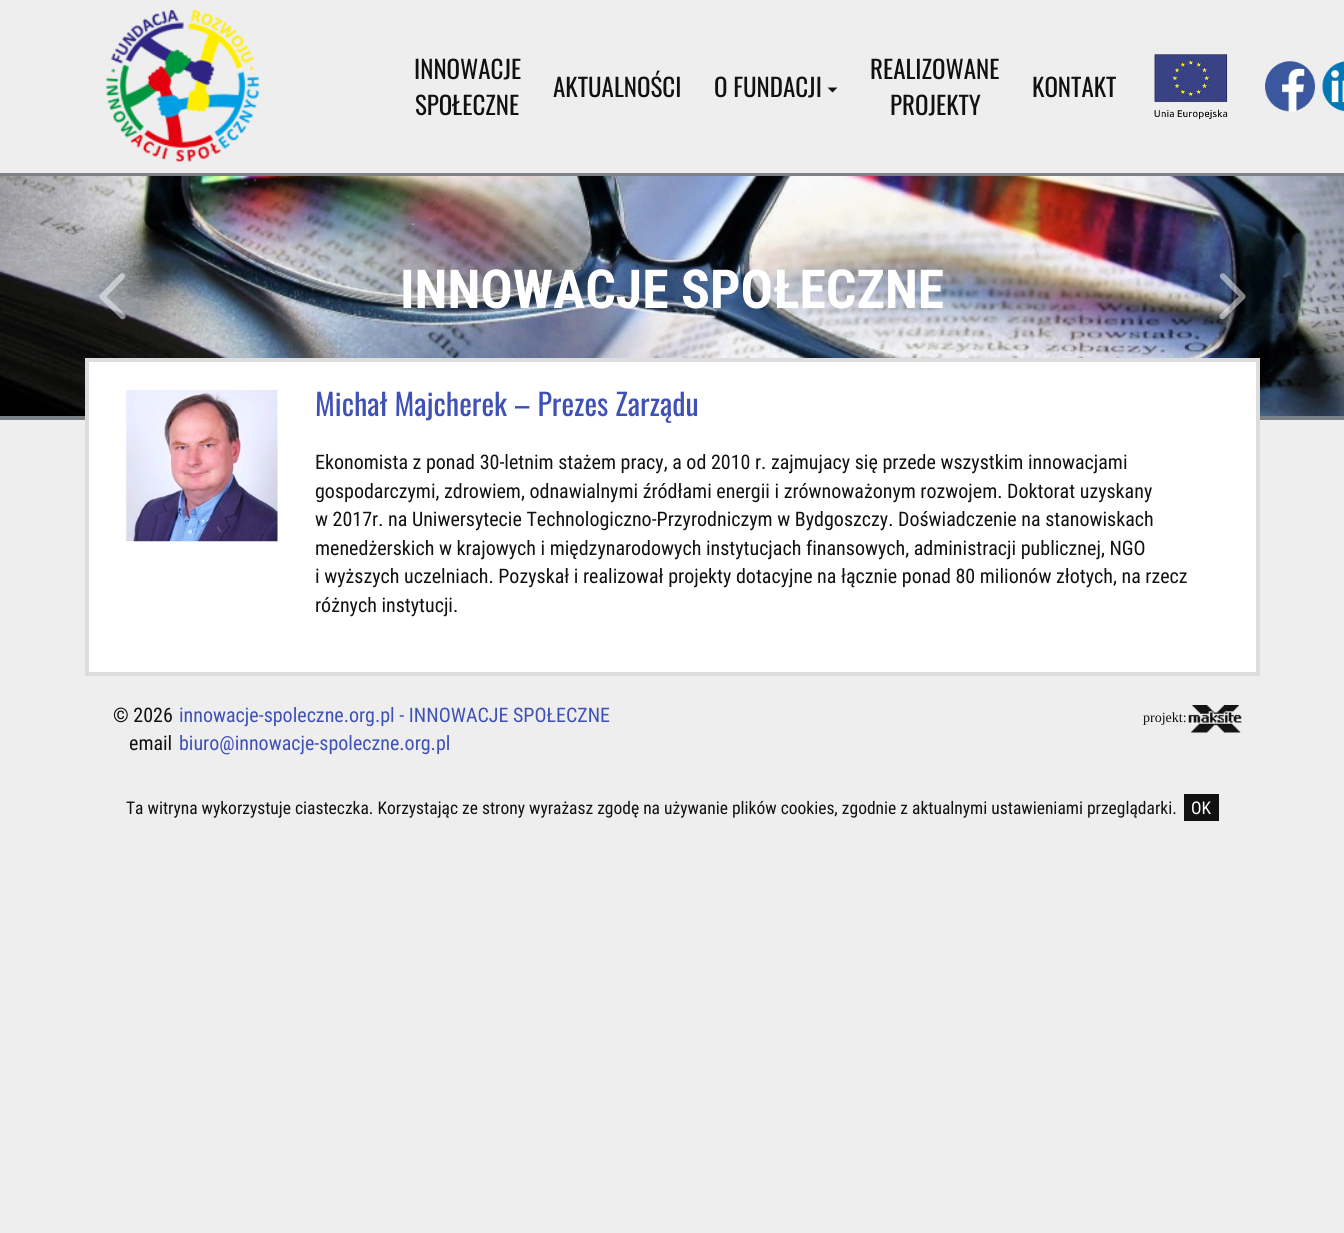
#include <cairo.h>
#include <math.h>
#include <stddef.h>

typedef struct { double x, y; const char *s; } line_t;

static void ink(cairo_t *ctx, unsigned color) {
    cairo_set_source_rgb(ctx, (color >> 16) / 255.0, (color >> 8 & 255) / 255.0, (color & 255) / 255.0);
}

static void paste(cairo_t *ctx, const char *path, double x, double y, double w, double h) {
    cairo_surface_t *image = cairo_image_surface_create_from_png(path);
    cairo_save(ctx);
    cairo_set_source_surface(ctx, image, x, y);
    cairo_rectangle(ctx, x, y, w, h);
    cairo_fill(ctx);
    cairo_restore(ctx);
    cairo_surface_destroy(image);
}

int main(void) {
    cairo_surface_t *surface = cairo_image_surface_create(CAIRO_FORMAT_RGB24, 1344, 1233);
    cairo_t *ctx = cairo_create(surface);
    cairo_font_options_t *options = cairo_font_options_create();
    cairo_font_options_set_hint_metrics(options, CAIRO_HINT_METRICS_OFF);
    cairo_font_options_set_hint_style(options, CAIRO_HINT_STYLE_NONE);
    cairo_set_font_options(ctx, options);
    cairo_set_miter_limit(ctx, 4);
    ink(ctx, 0xEEEEEE);
    cairo_paint(ctx);
    ink(ctx, 0x7D8085);
    cairo_rectangle(ctx, 0, 173, 1344, 3);
    cairo_fill(ctx);
    paste(ctx, "media/1.png", 106, 9, 153, 153);
    cairo_select_font_face(ctx, "Oswald", CAIRO_FONT_SLANT_NORMAL, CAIRO_FONT_WEIGHT_NORMAL);
    cairo_set_font_size(ctx, 25);
    ink(ctx, 0x111111);
    {
        static const line_t items[] = {
            {414, 79, "INNOWACJE"},
            {415, 115, "SPOŁECZNE"},
            {553, 97, "AKTUALNOŚCI"},
            {714, 97, "O FUNDACJI"},
        };
        for (size_t i = 0; i < sizeof items / sizeof *items; i++) {
            cairo_move_to(ctx, items[i].x, items[i].y);
            cairo_show_text(ctx, items[i].s);
        }
    }
    cairo_new_path(ctx);
    cairo_move_to(ctx, 827.5, 87.5);
    cairo_line_to(ctx, 837.5, 87.5);
    cairo_line_to(ctx, 832.5, 92.5);
    cairo_close_path(ctx);
    cairo_fill(ctx);
    {
        static const line_t items[] = {
            {870, 79, "REALIZOWANE"},
            {890, 115, "PROJEKTY"},
            {1032, 97, "KONTAKT"},
        };
        for (size_t i = 0; i < sizeof items / sizeof *items; i++) {
            cairo_move_to(ctx, items[i].x, items[i].y);
            cairo_show_text(ctx, items[i].s);
        }
    }
    paste(ctx, "media/2.png", 1154, 54, 74, 66);
    paste(ctx, "media/3.png", 1265, 61, 50, 51);
    paste(ctx, "media/4.png", 1322, 61, 22, 51);
    ink(ctx, 0x7D8085);
    cairo_rectangle(ctx, 0, 416, 1344, 4);
    cairo_fill(ctx);
    paste(ctx, "media/6.png", 0, 176, 1344, 240);
    paste(ctx, "media/5.png", 99, 273, 27, 47);
    cairo_select_font_face(ctx, "Roboto Condensed", CAIRO_FONT_SLANT_NORMAL, CAIRO_FONT_WEIGHT_BOLD);
    cairo_set_font_size(ctx, 53.75);
    ink(ctx, 0xFFFFFF);
    cairo_move_to(ctx, 400, 308);
    cairo_show_text(ctx, "INNOWACJE SPOŁECZNE");
    paste(ctx, "media/7.png", 1219, 273, 27, 47);
    cairo_rectangle(ctx, 87, 360, 1171, 314);
    cairo_fill_preserve(ctx);
    ink(ctx, 0xDDDDDD);
    cairo_set_line_width(ctx, 4);
    cairo_stroke(ctx);
    paste(ctx, "media/8.png", 126, 390, 152, 152);
    cairo_select_font_face(ctx, "Oswald", CAIRO_FONT_SLANT_NORMAL, CAIRO_FONT_WEIGHT_NORMAL);
    cairo_set_font_size(ctx, 30);
    ink(ctx, 0x3F51B5);
    cairo_move_to(ctx, 315, 416);
    cairo_show_text(ctx, "Michał Majcherek – Prezes Zarządu");
    cairo_select_font_face(ctx, "Roboto Condensed", CAIRO_FONT_SLANT_NORMAL, CAIRO_FONT_WEIGHT_NORMAL);
    cairo_set_font_size(ctx, 20);
    ink(ctx, 0x111111);
    {
        static const line_t items[] = {
            {315, 469, "Ekonomista z ponad 30-letnim stażem pracy, a od 2010 r. zajmujacy się przede wszystkim innowacjami"},
            {315, 498, "gospodarczymi, zdrowiem, odnawialnymi źródłami energii i zrównoważonym rozwojem. Doktorat uzyskany"},
            {315, 526, "w 2017r. na Uniwersytecie Technologiczno-Przyrodniczym w Bydgoszczy. Doświadczenie na stanowiskach"},
            {315, 555, "menedżerskich w krajowych i międzynarodowych instytucjach finansowych, administracji publicznej, NGO"},
            {315, 583, "i wyższych uczelniach. Pozyskał i realizował projekty dotacyjne na łącznie ponad 80 milionów złotych, na rzecz"},
            {315, 612, "różnych instytucji."},
            {113, 722, "© 2026"},
        };
        for (size_t i = 0; i < sizeof items / sizeof *items; i++) {
            cairo_move_to(ctx, items[i].x, items[i].y);
            cairo_show_text(ctx, items[i].s);
        }
    }
    ink(ctx, 0x3F51B5);
    cairo_move_to(ctx, 179, 722);
    cairo_show_text(ctx, "innowacje-spoleczne.org.pl - INNOWACJE SPOŁECZNE");
    ink(ctx, 0x111111);
    cairo_move_to(ctx, 129, 750);
    cairo_show_text(ctx, "email");
    ink(ctx, 0x3F51B5);
    cairo_move_to(ctx, 179, 750);
    cairo_show_text(ctx, "biuro@innowacje-spoleczne.org.pl");
    cairo_select_font_face(ctx, "Liberation Serif", CAIRO_FONT_SLANT_NORMAL, CAIRO_FONT_WEIGHT_NORMAL);
    cairo_set_font_size(ctx, 14);
    ink(ctx, 0x111111);
    cairo_move_to(ctx, 1143, 722);
    cairo_show_text(ctx, "projekt:");
    paste(ctx, "media/9.png", 1188, 705, 54, 28);
    cairo_select_font_face(ctx, "Roboto Condensed", CAIRO_FONT_SLANT_NORMAL, CAIRO_FONT_WEIGHT_NORMAL);
    cairo_set_font_size(ctx, 17.5);
    cairo_move_to(ctx, 126, 814);
    cairo_show_text(ctx, "Ta witryna wykorzystuje ciasteczka. Korzystając ze strony wyrażasz zgodę na używanie plików cookies, zgodnie z aktualnymi ustawieniami przeglądarki.");
    cairo_rectangle(ctx, 1184, 794, 35, 27);
    cairo_fill(ctx);
    ink(ctx, 0xFFFFFF);
    cairo_move_to(ctx, 1191, 814);
    cairo_show_text(ctx, "OK");
    cairo_surface_write_to_png(surface, "image.png");
    cairo_font_options_destroy(options);
    cairo_destroy(ctx);
    cairo_surface_destroy(surface);
    return 0;
}
